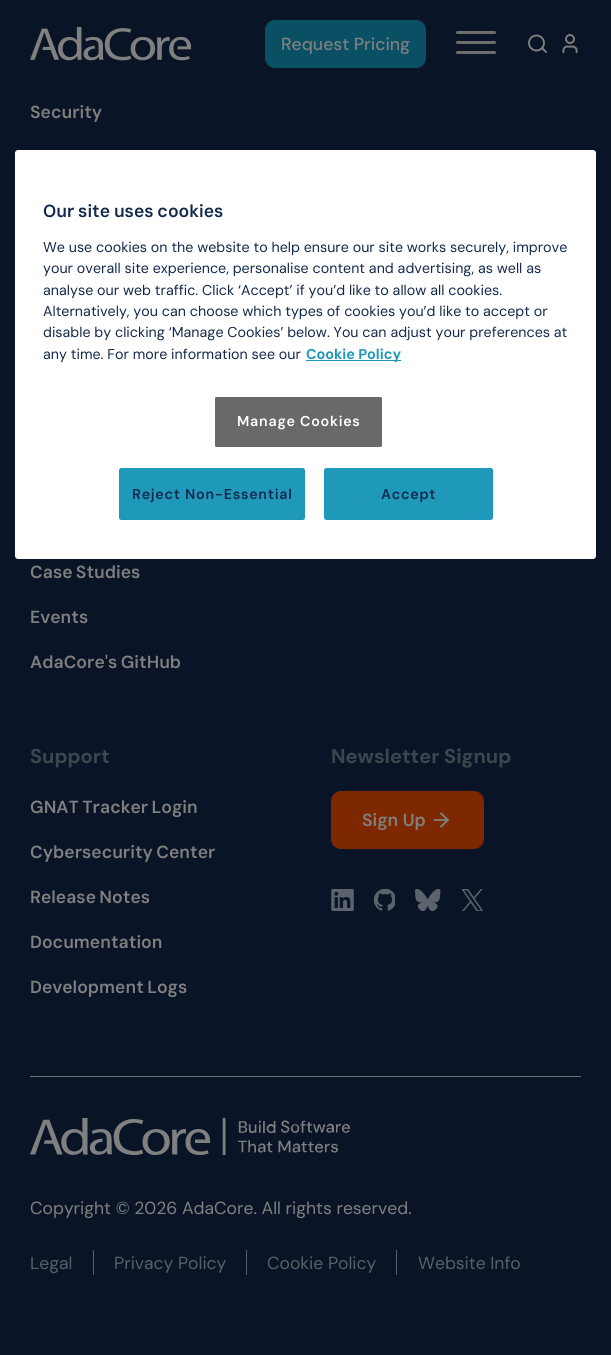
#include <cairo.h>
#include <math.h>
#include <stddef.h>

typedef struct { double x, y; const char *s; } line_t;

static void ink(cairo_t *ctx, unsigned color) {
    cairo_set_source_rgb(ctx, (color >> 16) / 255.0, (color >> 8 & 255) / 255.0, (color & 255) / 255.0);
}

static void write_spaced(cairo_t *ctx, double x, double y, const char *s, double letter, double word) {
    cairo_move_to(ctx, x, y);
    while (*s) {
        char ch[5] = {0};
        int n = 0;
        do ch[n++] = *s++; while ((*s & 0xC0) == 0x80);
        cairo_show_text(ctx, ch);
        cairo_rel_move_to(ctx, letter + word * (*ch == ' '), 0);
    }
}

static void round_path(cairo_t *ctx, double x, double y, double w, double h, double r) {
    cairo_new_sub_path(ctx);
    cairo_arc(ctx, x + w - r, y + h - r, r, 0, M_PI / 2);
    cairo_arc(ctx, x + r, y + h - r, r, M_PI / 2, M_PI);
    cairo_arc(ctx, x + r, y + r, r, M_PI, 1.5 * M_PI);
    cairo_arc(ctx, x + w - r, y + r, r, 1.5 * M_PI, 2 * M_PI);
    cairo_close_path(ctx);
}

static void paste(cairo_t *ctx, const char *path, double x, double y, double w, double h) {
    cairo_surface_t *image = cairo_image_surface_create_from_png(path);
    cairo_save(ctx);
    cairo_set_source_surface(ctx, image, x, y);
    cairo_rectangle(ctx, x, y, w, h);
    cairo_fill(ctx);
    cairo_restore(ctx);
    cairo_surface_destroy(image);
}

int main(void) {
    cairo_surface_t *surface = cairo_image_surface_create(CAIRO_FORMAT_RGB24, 611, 1355);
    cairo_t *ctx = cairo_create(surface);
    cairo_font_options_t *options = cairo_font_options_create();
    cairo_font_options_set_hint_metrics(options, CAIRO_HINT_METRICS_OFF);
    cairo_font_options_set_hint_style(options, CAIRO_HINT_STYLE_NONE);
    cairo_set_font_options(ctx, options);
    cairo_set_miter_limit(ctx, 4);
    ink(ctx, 0x091426);
    cairo_paint(ctx);
    paste(ctx, "media/1.png", 30, 27, 161, 34);
    ink(ctx, 0x095064);
    round_path(ctx, 265.5, 20.5, 160, 47, 9.5);
    cairo_fill_preserve(ctx);
    cairo_set_line_width(ctx, 1);
    cairo_stroke(ctx);
    cairo_select_font_face(ctx, "DM Sans Medium", CAIRO_FONT_SLANT_NORMAL, CAIRO_FONT_WEIGHT_NORMAL);
    cairo_set_font_size(ctx, 17.5);
    ink(ctx, 0x808080);
    cairo_move_to(ctx, 281, 50);
    cairo_show_text(ctx, "Request Pricing");
    ink(ctx, 0x6D6D6D);
    round_path(ctx, 456, 31, 40, 3, 1.5);
    cairo_fill(ctx);
    round_path(ctx, 456, 41, 40, 3, 1.5);
    cairo_fill(ctx);
    round_path(ctx, 456, 51, 40, 3, 1.5);
    cairo_fill(ctx);
    cairo_new_path(ctx);
    cairo_move_to(ctx, 546, 52);
    cairo_line_to(ctx, 542, 48);
    ink(ctx, 0x808080);
    cairo_set_line_width(ctx, 1.9);
    cairo_set_line_cap(ctx, CAIRO_LINE_CAP_ROUND);
    cairo_set_line_join(ctx, CAIRO_LINE_JOIN_ROUND);
    cairo_stroke(ctx);
    cairo_arc(ctx, 536.5, 43, 7.5, 0, 2 * M_PI);
    cairo_set_line_cap(ctx, CAIRO_LINE_CAP_BUTT);
    cairo_set_line_join(ctx, CAIRO_LINE_JOIN_MITER);
    cairo_stroke(ctx);
    paste(ctx, "media/2.png", 562, 34, 16, 20);
    cairo_select_font_face(ctx, "DM Sans SemiBold", CAIRO_FONT_SLANT_NORMAL, CAIRO_FONT_WEIGHT_NORMAL);
    cairo_move_to(ctx, 30, 118);
    cairo_show_text(ctx, "Security");
    write_spaced(ctx, 30, 578, "Case Studies", 0, -1);
    cairo_move_to(ctx, 30, 623);
    cairo_show_text(ctx, "Events");
    write_spaced(ctx, 30, 668, "AdaCore's GitHub", 0, -1);
    cairo_select_font_face(ctx, "DM Sans", CAIRO_FONT_SLANT_NORMAL, CAIRO_FONT_WEIGHT_BOLD);
    cairo_set_font_size(ctx, 20);
    ink(ctx, 0x3E454E);
    cairo_move_to(ctx, 30, 763);
    cairo_show_text(ctx, "Support");
    cairo_select_font_face(ctx, "DM Sans SemiBold", CAIRO_FONT_SLANT_NORMAL, CAIRO_FONT_WEIGHT_NORMAL);
    cairo_set_font_size(ctx, 17.5);
    ink(ctx, 0x808080);
    {
        static const line_t items[] = {
            {30, 813, "GNAT Tracker Login"},
            {30, 858, "Cybersecurity Center"},
            {30, 903, "Release Notes"},
        };
        for (size_t i = 0; i < sizeof items / sizeof *items; i++) {
            write_spaced(ctx, items[i].x, items[i].y, items[i].s, 0, -1);
        }
    }
    cairo_move_to(ctx, 30, 948);
    cairo_show_text(ctx, "Documentation");
    write_spaced(ctx, 30, 993, "Development Logs", 0, -1);
    cairo_select_font_face(ctx, "DM Sans", CAIRO_FONT_SLANT_NORMAL, CAIRO_FONT_WEIGHT_BOLD);
    cairo_set_font_size(ctx, 20);
    ink(ctx, 0x3E454E);
    cairo_move_to(ctx, 331, 763);
    cairo_show_text(ctx, "Newsletter Signup");
    ink(ctx, 0x7D2800);
    round_path(ctx, 331.5, 791.5, 152, 57, 9.5);
    cairo_fill_preserve(ctx);
    cairo_set_line_width(ctx, 1);
    cairo_stroke(ctx);
    cairo_select_font_face(ctx, "DM Sans SemiBold", CAIRO_FONT_SLANT_NORMAL, CAIRO_FONT_WEIGHT_NORMAL);
    cairo_set_font_size(ctx, 17.5);
    ink(ctx, 0x808080);
    cairo_move_to(ctx, 362, 826);
    cairo_show_text(ctx, "Sign Up");
    cairo_new_path(ctx);
    cairo_move_to(ctx, 434.5, 820);
    cairo_line_to(ctx, 448, 820);
    cairo_move_to(ctx, 441, 813.5);
    cairo_line_to(ctx, 448, 820);
    cairo_line_to(ctx, 441, 826.5);
    cairo_set_line_width(ctx, 1.9);
    cairo_set_line_cap(ctx, CAIRO_LINE_CAP_ROUND);
    cairo_set_line_join(ctx, CAIRO_LINE_JOIN_ROUND);
    cairo_stroke(ctx);
    paste(ctx, "media/3.png", 331, 889, 23, 22);
    paste(ctx, "media/4.png", 374, 889, 21, 22);
    paste(ctx, "media/5.png", 415, 889, 26, 22);
    paste(ctx, "media/6.png", 461, 889, 23, 22);
    ink(ctx, 0x70767D);
    cairo_rectangle(ctx, 30, 1076, 551, 1);
    cairo_fill(ctx);
    paste(ctx, "media/7.png", 30, 1118, 320, 37);
    cairo_select_font_face(ctx, "DM Sans", CAIRO_FONT_SLANT_NORMAL, CAIRO_FONT_WEIGHT_NORMAL);
    ink(ctx, 0x808080);
    cairo_move_to(ctx, 30, 1214);
    cairo_show_text(ctx, "Copyright © 2026 AdaCore. All rights reserved.");
    ink(ctx, 0x586067);
    cairo_rectangle(ctx, 93, 1250, 1, 25);
    cairo_fill(ctx);
    cairo_move_to(ctx, 30, 1269);
    cairo_show_text(ctx, "Legal");
    cairo_rectangle(ctx, 246, 1250, 1, 25);
    cairo_fill(ctx);
    cairo_move_to(ctx, 114, 1269);
    cairo_show_text(ctx, "Privacy Policy");
    cairo_rectangle(ctx, 396, 1250, 1, 25);
    cairo_fill(ctx);
    cairo_move_to(ctx, 267, 1269);
    cairo_show_text(ctx, "Cookie Policy");
    cairo_move_to(ctx, 418, 1269);
    cairo_show_text(ctx, "Website Info");
    ink(ctx, 0xFFFFFF);
    round_path(ctx, 15, 150, 581, 409, 3);
    cairo_fill(ctx);
    cairo_select_font_face(ctx, "DM Sans SemiBold", CAIRO_FONT_SLANT_NORMAL, CAIRO_FONT_WEIGHT_NORMAL);
    ink(ctx, 0x12284C);
    write_spaced(ctx, 43, 217, "Our site uses cookies", 0, -0.5);
    cairo_select_font_face(ctx, "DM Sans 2", CAIRO_FONT_SLANT_NORMAL, CAIRO_FONT_WEIGHT_NORMAL);
    cairo_set_font_size(ctx, 14.25);
    {
        static const line_t items[] = {
            {43, 252, "We use cookies on the website to help ensure our site works securely, improve"},
            {43, 273, "your overall site experience, personalise content and advertising, as well as"},
            {43, 295, "analyse our web traffic. Click ‘Accept’ if you’d like to allow all cookies."},
            {43, 316, "Alternatively, you can choose which types of cookies you’d like to accept or"},
            {43, 337, "disable by clicking ‘Manage Cookies’ below. You can adjust your preferences at"},
            {43, 359, "any time. For more information see our"},
        };
        for (size_t i = 0; i < sizeof items / sizeof *items; i++) {
            cairo_move_to(ctx, items[i].x, items[i].y);
            cairo_show_text(ctx, items[i].s);
        }
    }
    ink(ctx, 0x1F99BA);
    cairo_rectangle(ctx, 306, 360, 95, 1);
    cairo_fill(ctx);
    cairo_select_font_face(ctx, "DM Sans 2", CAIRO_FONT_SLANT_NORMAL, CAIRO_FONT_WEIGHT_BOLD);
    cairo_move_to(ctx, 306, 359);
    cairo_show_text(ctx, "Cookie Policy");
    ink(ctx, 0x696969);
    round_path(ctx, 214.5, 396.5, 168, 51, 2);
    cairo_fill_preserve(ctx);
    ink(ctx, 0xFFFFFF);
    cairo_set_line_width(ctx, 1);
    cairo_set_line_cap(ctx, CAIRO_LINE_CAP_BUTT);
    cairo_set_line_join(ctx, CAIRO_LINE_JOIN_MITER);
    cairo_stroke(ctx);
    cairo_select_font_face(ctx, "DM Sans 2 SemiBold", CAIRO_FONT_SLANT_NORMAL, CAIRO_FONT_WEIGHT_NORMAL);
    write_spaced(ctx, 237, 426, "Manage Cookies", 0.75, 0);
    ink(ctx, 0x1F99BA);
    round_path(ctx, 119.5, 468.5, 185, 51, 2);
    cairo_fill_preserve(ctx);
    cairo_stroke(ctx);
    ink(ctx, 0x12284C);
    write_spaced(ctx, 132, 499, "Reject Non-Essential", 0.75, 0);
    ink(ctx, 0x1F99BA);
    round_path(ctx, 324.5, 468.5, 168, 51, 2);
    cairo_fill_preserve(ctx);
    cairo_stroke(ctx);
    ink(ctx, 0x12284C);
    write_spaced(ctx, 381, 499, "Accept", 0.75, 0);
    cairo_surface_write_to_png(surface, "image.png");
    cairo_font_options_destroy(options);
    cairo_destroy(ctx);
    cairo_surface_destroy(surface);
    return 0;
}
